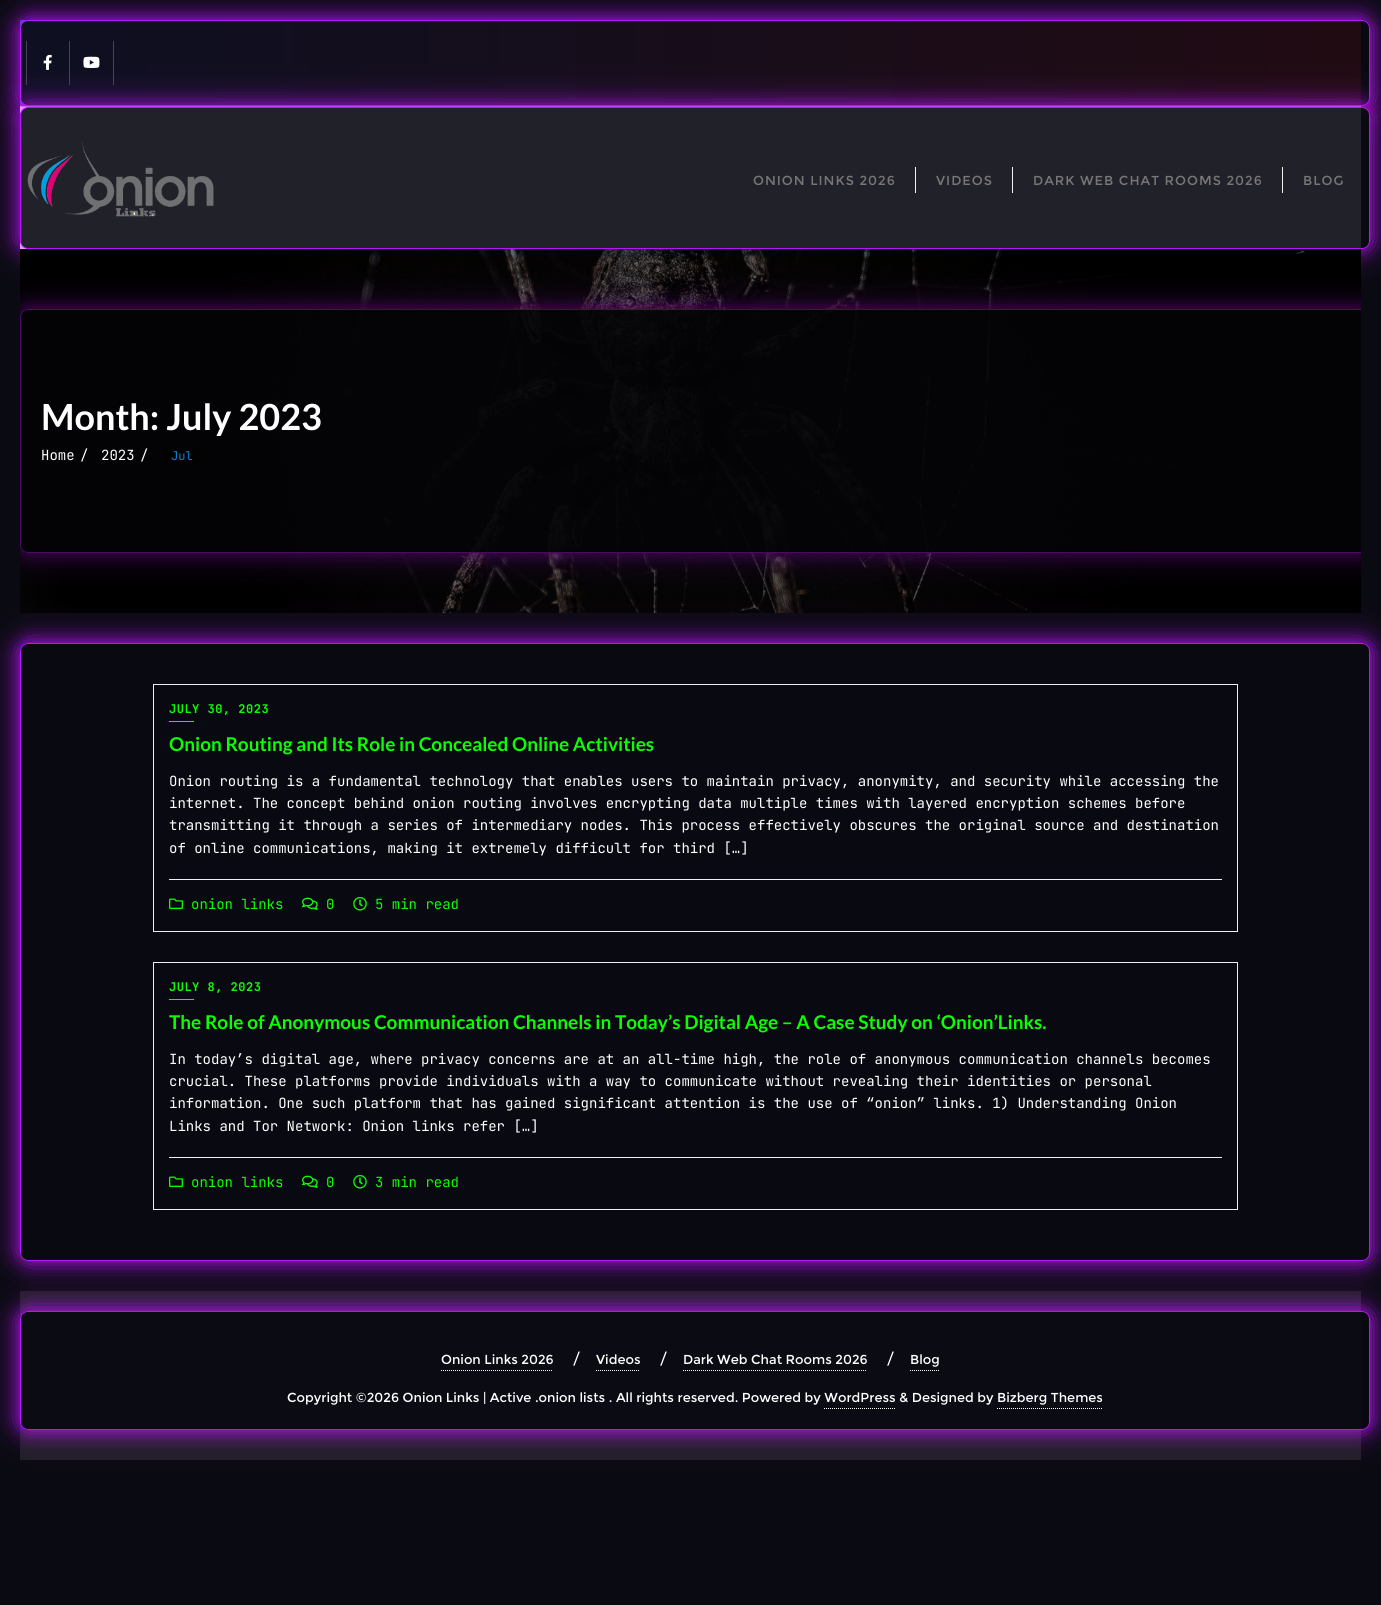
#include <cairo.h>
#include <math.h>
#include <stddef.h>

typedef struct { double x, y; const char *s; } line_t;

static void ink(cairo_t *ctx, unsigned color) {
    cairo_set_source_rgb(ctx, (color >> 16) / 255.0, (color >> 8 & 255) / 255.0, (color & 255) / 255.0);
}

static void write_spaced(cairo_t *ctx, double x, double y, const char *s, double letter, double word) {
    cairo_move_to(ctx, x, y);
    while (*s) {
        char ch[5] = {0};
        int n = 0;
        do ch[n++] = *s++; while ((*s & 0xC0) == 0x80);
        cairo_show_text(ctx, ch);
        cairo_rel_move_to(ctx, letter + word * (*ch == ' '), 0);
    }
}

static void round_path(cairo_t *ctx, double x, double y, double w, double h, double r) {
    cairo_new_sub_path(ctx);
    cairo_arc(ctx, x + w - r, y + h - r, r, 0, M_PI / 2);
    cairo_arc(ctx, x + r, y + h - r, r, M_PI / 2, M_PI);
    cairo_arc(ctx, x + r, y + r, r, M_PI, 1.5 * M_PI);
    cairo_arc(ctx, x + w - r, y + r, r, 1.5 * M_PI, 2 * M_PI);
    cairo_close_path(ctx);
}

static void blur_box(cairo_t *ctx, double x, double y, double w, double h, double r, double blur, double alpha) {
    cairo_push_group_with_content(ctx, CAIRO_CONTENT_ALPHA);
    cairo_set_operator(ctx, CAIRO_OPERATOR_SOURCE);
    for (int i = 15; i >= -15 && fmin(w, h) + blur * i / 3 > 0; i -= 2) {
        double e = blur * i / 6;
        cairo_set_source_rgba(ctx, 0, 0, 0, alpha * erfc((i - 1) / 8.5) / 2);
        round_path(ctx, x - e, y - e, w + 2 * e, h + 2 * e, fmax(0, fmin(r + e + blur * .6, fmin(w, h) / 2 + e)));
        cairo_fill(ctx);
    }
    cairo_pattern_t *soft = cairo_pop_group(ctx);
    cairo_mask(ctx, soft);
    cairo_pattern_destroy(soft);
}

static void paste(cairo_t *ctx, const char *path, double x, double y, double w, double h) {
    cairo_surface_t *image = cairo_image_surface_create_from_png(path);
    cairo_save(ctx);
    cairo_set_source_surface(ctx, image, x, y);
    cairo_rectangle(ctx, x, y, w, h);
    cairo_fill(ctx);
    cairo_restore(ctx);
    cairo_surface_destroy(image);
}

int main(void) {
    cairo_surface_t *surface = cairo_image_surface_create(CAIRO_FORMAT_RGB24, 1381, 1605);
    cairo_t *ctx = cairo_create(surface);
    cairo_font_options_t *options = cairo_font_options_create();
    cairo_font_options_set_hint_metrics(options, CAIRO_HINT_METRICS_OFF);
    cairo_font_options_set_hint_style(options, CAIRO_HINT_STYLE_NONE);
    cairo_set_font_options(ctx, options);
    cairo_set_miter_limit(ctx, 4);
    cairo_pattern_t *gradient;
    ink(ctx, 0x0A0A12);
    cairo_paint(ctx);
    gradient = cairo_pattern_create_linear(20, 63, 1361, 63);
    cairo_pattern_add_color_stop_rgba(gradient, 0, 0.227, 0.298, 0.706, 1);
    cairo_pattern_add_color_stop_rgba(gradient, 1, 0.992, 0.114, 0.114, 1);
    cairo_set_source(ctx, gradient);
    cairo_pattern_destroy(gradient);
    cairo_rectangle(ctx, 20, 20, 1341, 86);
    cairo_fill(ctx);
    ink(ctx, 0xFFFFFF);
    cairo_rectangle(ctx, 20, 106, 1341, 1);
    cairo_fill(ctx);
    cairo_save(ctx);
    cairo_set_fill_rule(ctx, CAIRO_FILL_RULE_EVEN_ODD);
    cairo_new_path(ctx);
    cairo_move_to(ctx, 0, 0);
    cairo_line_to(ctx, 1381, 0);
    cairo_line_to(ctx, 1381, 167);
    cairo_line_to(ctx, 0, 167);
    cairo_close_path(ctx);
    cairo_move_to(ctx, 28, 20);
    cairo_line_to(ctx, 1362, 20);
    cairo_curve_to(ctx, 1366.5, 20, 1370, 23.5, 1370, 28);
    cairo_line_to(ctx, 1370, 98);
    cairo_curve_to(ctx, 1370, 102.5, 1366.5, 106, 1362, 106);
    cairo_line_to(ctx, 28, 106);
    cairo_curve_to(ctx, 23.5, 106, 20, 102.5, 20, 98);
    cairo_line_to(ctx, 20, 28);
    cairo_curve_to(ctx, 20, 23.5, 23.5, 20, 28, 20);
    cairo_close_path(ctx);
    cairo_clip(ctx);
    ink(ctx, 0xBC13FE);
    blur_box(ctx, 20, 20, 1350, 86, 8, 20, 0.3);
    cairo_restore(ctx);
    cairo_save(ctx);
    cairo_set_fill_rule(ctx, CAIRO_FILL_RULE_EVEN_ODD);
    cairo_new_path(ctx);
    cairo_move_to(ctx, 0, 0);
    cairo_line_to(ctx, 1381, 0);
    cairo_line_to(ctx, 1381, 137);
    cairo_line_to(ctx, 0, 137);
    cairo_close_path(ctx);
    cairo_move_to(ctx, 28, 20);
    cairo_line_to(ctx, 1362, 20);
    cairo_curve_to(ctx, 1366.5, 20, 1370, 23.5, 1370, 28);
    cairo_line_to(ctx, 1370, 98);
    cairo_curve_to(ctx, 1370, 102.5, 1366.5, 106, 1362, 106);
    cairo_line_to(ctx, 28, 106);
    cairo_curve_to(ctx, 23.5, 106, 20, 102.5, 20, 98);
    cairo_line_to(ctx, 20, 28);
    cairo_curve_to(ctx, 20, 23.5, 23.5, 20, 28, 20);
    cairo_close_path(ctx);
    cairo_clip(ctx);
    ink(ctx, 0xBC13FE);
    blur_box(ctx, 20, 20, 1350, 86, 8, 10, 1);
    cairo_restore(ctx);
    cairo_set_source_rgba(ctx, 0.039, 0.039, 0.071, 0.9);
    round_path(ctx, 20.5, 20.5, 1349, 85, 7.5);
    cairo_fill_preserve(ctx);
    ink(ctx, 0xBC13FE);
    cairo_set_line_width(ctx, 1);
    cairo_stroke(ctx);
    ink(ctx, 0x444552);
    cairo_rectangle(ctx, 69, 41, 1, 44);
    cairo_fill(ctx);
    ink(ctx, 0x444553);
    cairo_rectangle(ctx, 26, 41, 1, 44);
    cairo_fill(ctx);
    paste(ctx, "media/1.png", 43, 54, 9, 16);
    ink(ctx, 0x454552);
    cairo_rectangle(ctx, 113, 41, 1, 44);
    cairo_fill(ctx);
    paste(ctx, "media/2.png", 83, 56, 17, 12);
    ink(ctx, 0xFFFFFF);
    cairo_rectangle(ctx, 20, 107, 1341, 142);
    cairo_fill(ctx);
    cairo_save(ctx);
    cairo_set_fill_rule(ctx, CAIRO_FILL_RULE_EVEN_ODD);
    cairo_new_path(ctx);
    cairo_move_to(ctx, 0, 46);
    cairo_line_to(ctx, 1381, 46);
    cairo_line_to(ctx, 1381, 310);
    cairo_line_to(ctx, 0, 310);
    cairo_close_path(ctx);
    cairo_move_to(ctx, 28, 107);
    cairo_line_to(ctx, 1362, 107);
    cairo_curve_to(ctx, 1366.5, 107, 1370, 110.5, 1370, 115);
    cairo_line_to(ctx, 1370, 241);
    cairo_curve_to(ctx, 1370, 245.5, 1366.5, 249, 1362, 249);
    cairo_line_to(ctx, 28, 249);
    cairo_curve_to(ctx, 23.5, 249, 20, 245.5, 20, 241);
    cairo_line_to(ctx, 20, 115);
    cairo_curve_to(ctx, 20, 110.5, 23.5, 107, 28, 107);
    cairo_close_path(ctx);
    cairo_clip(ctx);
    ink(ctx, 0xBC13FE);
    blur_box(ctx, 20, 107, 1350, 142, 8, 20, 0.3);
    cairo_restore(ctx);
    cairo_save(ctx);
    cairo_set_fill_rule(ctx, CAIRO_FILL_RULE_EVEN_ODD);
    cairo_new_path(ctx);
    cairo_move_to(ctx, 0, 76);
    cairo_line_to(ctx, 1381, 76);
    cairo_line_to(ctx, 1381, 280);
    cairo_line_to(ctx, 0, 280);
    cairo_close_path(ctx);
    cairo_move_to(ctx, 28, 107);
    cairo_line_to(ctx, 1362, 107);
    cairo_curve_to(ctx, 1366.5, 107, 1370, 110.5, 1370, 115);
    cairo_line_to(ctx, 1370, 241);
    cairo_curve_to(ctx, 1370, 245.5, 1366.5, 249, 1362, 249);
    cairo_line_to(ctx, 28, 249);
    cairo_curve_to(ctx, 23.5, 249, 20, 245.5, 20, 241);
    cairo_line_to(ctx, 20, 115);
    cairo_curve_to(ctx, 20, 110.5, 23.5, 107, 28, 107);
    cairo_close_path(ctx);
    cairo_clip(ctx);
    ink(ctx, 0xBC13FE);
    blur_box(ctx, 20, 107, 1350, 142, 8, 10, 1);
    cairo_restore(ctx);
    cairo_set_source_rgba(ctx, 0.039, 0.039, 0.071, 0.9);
    round_path(ctx, 20.5, 107.5, 1349, 141, 7.5);
    cairo_fill_preserve(ctx);
    ink(ctx, 0xBC13FE);
    cairo_stroke(ctx);
    paste(ctx, "media/3.png", 27, 142, 187, 75);
    cairo_select_font_face(ctx, "Montserrat", CAIRO_FONT_SLANT_NORMAL, CAIRO_FONT_WEIGHT_NORMAL);
    cairo_set_font_size(ctx, 13);
    ink(ctx, 0x777777);
    write_spaced(ctx, 753, 185, "ONION LINKS 2026", 1, 0);
    ink(ctx, 0xF1F1F1);
    cairo_rectangle(ctx, 915, 167, 1, 26);
    cairo_fill(ctx);
    ink(ctx, 0x777777);
    write_spaced(ctx, 936, 185, "VIDEOS", 1, 0);
    ink(ctx, 0xF1F1F1);
    cairo_rectangle(ctx, 1012, 167, 1, 26);
    cairo_fill(ctx);
    ink(ctx, 0x777777);
    write_spaced(ctx, 1033, 185, "DARK WEB CHAT ROOMS 2026", 1, 0);
    ink(ctx, 0xF1F1F1);
    cairo_rectangle(ctx, 1282, 167, 1, 26);
    cairo_fill(ctx);
    ink(ctx, 0x777777);
    write_spaced(ctx, 1303, 185, "BLOG", 1, 0);
    paste(ctx, "media/4.png", 20, 249, 1341, 364);
    cairo_save(ctx);
    cairo_rectangle(ctx, 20, 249, 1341, 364);
    cairo_clip(ctx);
    cairo_set_fill_rule(ctx, CAIRO_FILL_RULE_EVEN_ODD);
    cairo_new_path(ctx);
    cairo_move_to(ctx, 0, 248);
    cairo_line_to(ctx, 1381, 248);
    cairo_line_to(ctx, 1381, 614);
    cairo_line_to(ctx, 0, 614);
    cairo_close_path(ctx);
    cairo_move_to(ctx, 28, 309);
    cairo_line_to(ctx, 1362, 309);
    cairo_curve_to(ctx, 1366.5, 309, 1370, 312.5, 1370, 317);
    cairo_line_to(ctx, 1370, 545);
    cairo_curve_to(ctx, 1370, 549.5, 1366.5, 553, 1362, 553);
    cairo_line_to(ctx, 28, 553);
    cairo_curve_to(ctx, 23.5, 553, 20, 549.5, 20, 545);
    cairo_line_to(ctx, 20, 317);
    cairo_curve_to(ctx, 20, 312.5, 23.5, 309, 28, 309);
    cairo_close_path(ctx);
    cairo_clip(ctx);
    ink(ctx, 0xBC13FE);
    blur_box(ctx, 20, 309, 1350, 244, 8, 20, 0.3);
    cairo_restore(ctx);
    cairo_save(ctx);
    cairo_rectangle(ctx, 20, 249, 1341, 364);
    cairo_clip(ctx);
    cairo_set_fill_rule(ctx, CAIRO_FILL_RULE_EVEN_ODD);
    cairo_new_path(ctx);
    cairo_move_to(ctx, 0, 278);
    cairo_line_to(ctx, 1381, 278);
    cairo_line_to(ctx, 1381, 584);
    cairo_line_to(ctx, 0, 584);
    cairo_close_path(ctx);
    cairo_move_to(ctx, 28, 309);
    cairo_line_to(ctx, 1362, 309);
    cairo_curve_to(ctx, 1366.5, 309, 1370, 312.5, 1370, 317);
    cairo_line_to(ctx, 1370, 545);
    cairo_curve_to(ctx, 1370, 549.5, 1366.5, 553, 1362, 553);
    cairo_line_to(ctx, 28, 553);
    cairo_curve_to(ctx, 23.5, 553, 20, 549.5, 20, 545);
    cairo_line_to(ctx, 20, 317);
    cairo_curve_to(ctx, 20, 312.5, 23.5, 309, 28, 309);
    cairo_close_path(ctx);
    cairo_clip(ctx);
    ink(ctx, 0xBC13FE);
    blur_box(ctx, 20, 309, 1350, 244, 8, 10, 1);
    cairo_restore(ctx);
    cairo_set_source_rgba(ctx, 0.039, 0.039, 0.071, 0.9);
    cairo_new_path(ctx);
    cairo_move_to(ctx, 28, 309);
    cairo_line_to(ctx, 1361, 309);
    cairo_line_to(ctx, 1361, 553);
    cairo_line_to(ctx, 28, 553);
    cairo_curve_to(ctx, 23.5, 553, 20, 549.5, 20, 545);
    cairo_line_to(ctx, 20, 317);
    cairo_curve_to(ctx, 20, 312.5, 23.5, 309, 28, 309);
    cairo_close_path(ctx);
    cairo_fill(ctx);
    cairo_save(ctx);
    cairo_rectangle(ctx, 20, 249, 1341, 364);
    cairo_clip(ctx);
    round_path(ctx, 20.5, 309.5, 1349, 243, 7.5);
    ink(ctx, 0xBC13FE);
    cairo_stroke(ctx);
    cairo_restore(ctx);
    cairo_set_source_rgba(ctx, 0, 0, 0, 0.6);
    cairo_rectangle(ctx, 20, 249, 1341, 364);
    cairo_fill(ctx);
    cairo_select_font_face(ctx, "Lato", CAIRO_FONT_SLANT_NORMAL, CAIRO_FONT_WEIGHT_BOLD);
    cairo_set_font_size(ctx, 36);
    ink(ctx, 0xFFFFFF);
    cairo_move_to(ctx, 41, 430);
    cairo_show_text(ctx, "Month: July 2023");
    cairo_select_font_face(ctx, "JetBrains Mono", CAIRO_FONT_SLANT_NORMAL, CAIRO_FONT_WEIGHT_NORMAL);
    cairo_set_font_size(ctx, 14);
    {
        static const line_t items[] = {
            {41, 460, "Home"},
            {80, 460, "/"},
            {101, 460, "2023"},
            {140, 460, "/"},
        };
        for (size_t i = 0; i < sizeof items / sizeof *items; i++) {
            cairo_move_to(ctx, items[i].x, items[i].y);
            cairo_show_text(ctx, items[i].s);
        }
    }
    ink(ctx, 0x020203);
    cairo_rectangle(ctx, 162, 446, 39, 20);
    cairo_fill(ctx);
    cairo_set_font_size(ctx, 12);
    ink(ctx, 0x0088CC);
    cairo_move_to(ctx, 171, 460);
    cairo_show_text(ctx, "Jul");
    ink(ctx, 0x1F2024);
    cairo_rectangle(ctx, 20, 1291, 1341, 169);
    cairo_fill(ctx);
    cairo_save(ctx);
    cairo_set_fill_rule(ctx, CAIRO_FILL_RULE_EVEN_ODD);
    cairo_new_path(ctx);
    cairo_move_to(ctx, 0, 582);
    cairo_line_to(ctx, 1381, 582);
    cairo_line_to(ctx, 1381, 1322);
    cairo_line_to(ctx, 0, 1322);
    cairo_close_path(ctx);
    cairo_move_to(ctx, 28, 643);
    cairo_line_to(ctx, 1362, 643);
    cairo_curve_to(ctx, 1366.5, 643, 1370, 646.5, 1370, 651);
    cairo_line_to(ctx, 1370, 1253);
    cairo_curve_to(ctx, 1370, 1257.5, 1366.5, 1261, 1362, 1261);
    cairo_line_to(ctx, 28, 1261);
    cairo_curve_to(ctx, 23.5, 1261, 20, 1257.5, 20, 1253);
    cairo_line_to(ctx, 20, 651);
    cairo_curve_to(ctx, 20, 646.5, 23.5, 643, 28, 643);
    cairo_close_path(ctx);
    cairo_clip(ctx);
    ink(ctx, 0xBC13FE);
    blur_box(ctx, 20, 643, 1350, 618, 8, 20, 0.3);
    cairo_restore(ctx);
    cairo_save(ctx);
    cairo_set_fill_rule(ctx, CAIRO_FILL_RULE_EVEN_ODD);
    cairo_new_path(ctx);
    cairo_move_to(ctx, 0, 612);
    cairo_line_to(ctx, 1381, 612);
    cairo_line_to(ctx, 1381, 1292);
    cairo_line_to(ctx, 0, 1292);
    cairo_close_path(ctx);
    cairo_move_to(ctx, 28, 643);
    cairo_line_to(ctx, 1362, 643);
    cairo_curve_to(ctx, 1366.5, 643, 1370, 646.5, 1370, 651);
    cairo_line_to(ctx, 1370, 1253);
    cairo_curve_to(ctx, 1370, 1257.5, 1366.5, 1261, 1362, 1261);
    cairo_line_to(ctx, 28, 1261);
    cairo_curve_to(ctx, 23.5, 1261, 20, 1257.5, 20, 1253);
    cairo_line_to(ctx, 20, 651);
    cairo_curve_to(ctx, 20, 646.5, 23.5, 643, 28, 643);
    cairo_close_path(ctx);
    cairo_clip(ctx);
    ink(ctx, 0xBC13FE);
    blur_box(ctx, 20, 643, 1350, 618, 8, 10, 1);
    cairo_restore(ctx);
    cairo_set_source_rgba(ctx, 0.039, 0.039, 0.071, 0.9);
    round_path(ctx, 20.5, 643.5, 1349, 617, 7.5);
    cairo_fill_preserve(ctx);
    ink(ctx, 0xBC13FE);
    cairo_stroke(ctx);
    cairo_rectangle(ctx, 153.5, 684.5, 1084, 247);
    ink(ctx, 0xEEEEEE);
    cairo_stroke(ctx);
    cairo_select_font_face(ctx, "JetBrains Mono", CAIRO_FONT_SLANT_NORMAL, CAIRO_FONT_WEIGHT_BOLD);
    ink(ctx, 0x0CFF00);
    write_spaced(ctx, 169, 713, "JULY 30, 2023", 0.5, 0);
    cairo_rectangle(ctx, 169, 721, 25, 1);
    cairo_fill(ctx);
    cairo_select_font_face(ctx, "Lato", CAIRO_FONT_SLANT_NORMAL, CAIRO_FONT_WEIGHT_BOLD);
    cairo_set_font_size(ctx, 19);
    cairo_move_to(ctx, 169, 751);
    cairo_show_text(ctx, "Onion Routing and Its Role in Concealed Online Activities");
    cairo_select_font_face(ctx, "JetBrains Mono", CAIRO_FONT_SLANT_NORMAL, CAIRO_FONT_WEIGHT_NORMAL);
    cairo_set_font_size(ctx, 14);
    ink(ctx, 0xFFFFFF);
    {
        static const line_t items[] = {
            {169, 786, "Onion routing is a fundamental technology that enables users to maintain privacy, anonymity, and security while accessing the"},
            {169, 808, "internet. The concept behind onion routing involves encrypting data multiple times with layered encryption schemes before"},
            {169, 830, "transmitting it through a series of intermediary nodes. This process effectively obscures the original source and destination"},
            {169, 853, "of online communications, making it extremely difficult for third […]"},
        };
        for (size_t i = 0; i < sizeof items / sizeof *items; i++) {
            cairo_move_to(ctx, items[i].x, items[i].y);
            cairo_show_text(ctx, items[i].s);
        }
    }
    ink(ctx, 0xEEEEEE);
    cairo_rectangle(ctx, 169, 879, 1053, 1);
    cairo_fill(ctx);
    paste(ctx, "media/5.png", 169, 898, 14, 11);
    ink(ctx, 0x0CFF00);
    cairo_move_to(ctx, 191, 909);
    cairo_show_text(ctx, "onion links");
    paste(ctx, "media/6.png", 302, 897, 16, 13);
    cairo_move_to(ctx, 326, 909);
    cairo_show_text(ctx, "0");
    paste(ctx, "media/7.png", 353, 897, 14, 14);
    cairo_move_to(ctx, 375, 909);
    cairo_show_text(ctx, "5 min read");
    cairo_rectangle(ctx, 153.5, 962.5, 1084, 247);
    ink(ctx, 0xEEEEEE);
    cairo_stroke(ctx);
    cairo_select_font_face(ctx, "JetBrains Mono", CAIRO_FONT_SLANT_NORMAL, CAIRO_FONT_WEIGHT_BOLD);
    cairo_set_font_size(ctx, 12);
    ink(ctx, 0x0CFF00);
    write_spaced(ctx, 169, 991, "JULY 8, 2023", 0.5, 0);
    cairo_rectangle(ctx, 169, 999, 25, 1);
    cairo_fill(ctx);
    cairo_select_font_face(ctx, "Lato", CAIRO_FONT_SLANT_NORMAL, CAIRO_FONT_WEIGHT_BOLD);
    cairo_set_font_size(ctx, 19);
    cairo_move_to(ctx, 169, 1029);
    cairo_show_text(ctx, "The Role of Anonymous Communication Channels in Today’s Digital Age – A Case Study on ‘Onion’Links.");
    cairo_select_font_face(ctx, "JetBrains Mono", CAIRO_FONT_SLANT_NORMAL, CAIRO_FONT_WEIGHT_NORMAL);
    cairo_set_font_size(ctx, 14);
    ink(ctx, 0xFFFFFF);
    {
        static const line_t items[] = {
            {169, 1064, "In today’s digital age, where privacy concerns are at an all-time high, the role of anonymous communication channels becomes"},
            {169, 1086, "crucial. These platforms provide individuals with a way to communicate without revealing their identities or personal"},
            {169, 1108, "information. One such platform that has gained significant attention is the use of “onion” links. 1) Understanding Onion"},
            {169, 1131, "Links and Tor Network: Onion links refer […]"},
        };
        for (size_t i = 0; i < sizeof items / sizeof *items; i++) {
            cairo_move_to(ctx, items[i].x, items[i].y);
            cairo_show_text(ctx, items[i].s);
        }
    }
    ink(ctx, 0xEEEEEE);
    cairo_rectangle(ctx, 169, 1157, 1053, 1);
    cairo_fill(ctx);
    paste(ctx, "media/5.png", 169, 1176, 14, 11);
    ink(ctx, 0x0CFF00);
    cairo_move_to(ctx, 191, 1187);
    cairo_show_text(ctx, "onion links");
    paste(ctx, "media/6.png", 302, 1175, 16, 13);
    cairo_move_to(ctx, 326, 1187);
    cairo_show_text(ctx, "0");
    paste(ctx, "media/7.png", 353, 1175, 14, 14);
    cairo_move_to(ctx, 375, 1187);
    cairo_show_text(ctx, "3 min read");
    cairo_save(ctx);
    cairo_set_fill_rule(ctx, CAIRO_FILL_RULE_EVEN_ODD);
    cairo_new_path(ctx);
    cairo_move_to(ctx, 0, 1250);
    cairo_line_to(ctx, 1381, 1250);
    cairo_line_to(ctx, 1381, 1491);
    cairo_line_to(ctx, 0, 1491);
    cairo_close_path(ctx);
    cairo_move_to(ctx, 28, 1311);
    cairo_line_to(ctx, 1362, 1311);
    cairo_curve_to(ctx, 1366.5, 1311, 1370, 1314.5, 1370, 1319);
    cairo_line_to(ctx, 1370, 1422);
    cairo_curve_to(ctx, 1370, 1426.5, 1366.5, 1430, 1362, 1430);
    cairo_line_to(ctx, 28, 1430);
    cairo_curve_to(ctx, 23.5, 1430, 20, 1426.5, 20, 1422);
    cairo_line_to(ctx, 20, 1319);
    cairo_curve_to(ctx, 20, 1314.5, 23.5, 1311, 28, 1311);
    cairo_close_path(ctx);
    cairo_clip(ctx);
    ink(ctx, 0xBC13FE);
    blur_box(ctx, 20, 1311, 1350, 119, 8, 20, 0.3);
    cairo_restore(ctx);
    cairo_save(ctx);
    cairo_set_fill_rule(ctx, CAIRO_FILL_RULE_EVEN_ODD);
    cairo_new_path(ctx);
    cairo_move_to(ctx, 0, 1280);
    cairo_line_to(ctx, 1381, 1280);
    cairo_line_to(ctx, 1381, 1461);
    cairo_line_to(ctx, 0, 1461);
    cairo_close_path(ctx);
    cairo_move_to(ctx, 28, 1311);
    cairo_line_to(ctx, 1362, 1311);
    cairo_curve_to(ctx, 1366.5, 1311, 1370, 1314.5, 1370, 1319);
    cairo_line_to(ctx, 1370, 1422);
    cairo_curve_to(ctx, 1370, 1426.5, 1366.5, 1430, 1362, 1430);
    cairo_line_to(ctx, 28, 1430);
    cairo_curve_to(ctx, 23.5, 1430, 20, 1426.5, 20, 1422);
    cairo_line_to(ctx, 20, 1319);
    cairo_curve_to(ctx, 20, 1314.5, 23.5, 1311, 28, 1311);
    cairo_close_path(ctx);
    cairo_clip(ctx);
    ink(ctx, 0xBC13FE);
    blur_box(ctx, 20, 1311, 1350, 119, 8, 10, 1);
    cairo_restore(ctx);
    cairo_set_source_rgba(ctx, 0.039, 0.039, 0.071, 0.9);
    round_path(ctx, 20.5, 1311.5, 1349, 118, 7.5);
    cairo_fill_preserve(ctx);
    ink(ctx, 0xBC13FE);
    cairo_stroke(ctx);
    cairo_new_path(ctx);
    cairo_move_to(ctx, 441, 1370.5);
    cairo_line_to(ctx, 553, 1370.5);
    ink(ctx, 0xFFFFFF);
    cairo_set_dash(ctx, (double[]){1, 1}, 2, 0);
    cairo_stroke(ctx);
    cairo_select_font_face(ctx, "Montserrat", CAIRO_FONT_SLANT_NORMAL, CAIRO_FONT_WEIGHT_NORMAL);
    cairo_set_font_size(ctx, 13);
    cairo_move_to(ctx, 441, 1364);
    cairo_show_text(ctx, "Onion Links 2026");
    cairo_select_font_face(ctx, "JetBrains Mono", CAIRO_FONT_SLANT_NORMAL, CAIRO_FONT_WEIGHT_NORMAL);
    cairo_set_font_size(ctx, 15);
    cairo_move_to(ctx, 572, 1364);
    cairo_show_text(ctx, "/");
    cairo_new_path(ctx);
    cairo_move_to(ctx, 596, 1370.5);
    cairo_line_to(ctx, 640, 1370.5);
    cairo_stroke(ctx);
    cairo_select_font_face(ctx, "Montserrat", CAIRO_FONT_SLANT_NORMAL, CAIRO_FONT_WEIGHT_NORMAL);
    cairo_set_font_size(ctx, 13);
    cairo_move_to(ctx, 596, 1364);
    cairo_show_text(ctx, "Videos");
    cairo_select_font_face(ctx, "JetBrains Mono", CAIRO_FONT_SLANT_NORMAL, CAIRO_FONT_WEIGHT_NORMAL);
    cairo_set_font_size(ctx, 15);
    cairo_move_to(ctx, 659, 1364);
    cairo_show_text(ctx, "/");
    cairo_new_path(ctx);
    cairo_move_to(ctx, 683, 1370.5);
    cairo_line_to(ctx, 867, 1370.5);
    cairo_stroke(ctx);
    cairo_select_font_face(ctx, "Montserrat", CAIRO_FONT_SLANT_NORMAL, CAIRO_FONT_WEIGHT_NORMAL);
    cairo_set_font_size(ctx, 13);
    cairo_move_to(ctx, 683, 1364);
    cairo_show_text(ctx, "Dark Web Chat Rooms 2026");
    cairo_select_font_face(ctx, "JetBrains Mono", CAIRO_FONT_SLANT_NORMAL, CAIRO_FONT_WEIGHT_NORMAL);
    cairo_set_font_size(ctx, 15);
    cairo_move_to(ctx, 886, 1364);
    cairo_show_text(ctx, "/");
    cairo_new_path(ctx);
    cairo_move_to(ctx, 910, 1370.5);
    cairo_line_to(ctx, 939, 1370.5);
    cairo_stroke(ctx);
    cairo_select_font_face(ctx, "Montserrat", CAIRO_FONT_SLANT_NORMAL, CAIRO_FONT_WEIGHT_NORMAL);
    cairo_set_font_size(ctx, 13);
    cairo_move_to(ctx, 910, 1364);
    cairo_show_text(ctx, "Blog");
    cairo_move_to(ctx, 287, 1402);
    cairo_show_text(ctx, "Copyright ©2026 Onion Links | Active .onion lists . All rights reserved. Powered by WordPress & Designed by Bizberg Themes");
    cairo_new_path(ctx);
    cairo_move_to(ctx, 824, 1408.5);
    cairo_line_to(ctx, 896, 1408.5);
    cairo_stroke(ctx);
    cairo_new_path(ctx);
    cairo_move_to(ctx, 997, 1408.5);
    cairo_line_to(ctx, 1103, 1408.5);
    cairo_stroke(ctx);
    cairo_surface_write_to_png(surface, "image.png");
    cairo_font_options_destroy(options);
    cairo_destroy(ctx);
    cairo_surface_destroy(surface);
    return 0;
}
